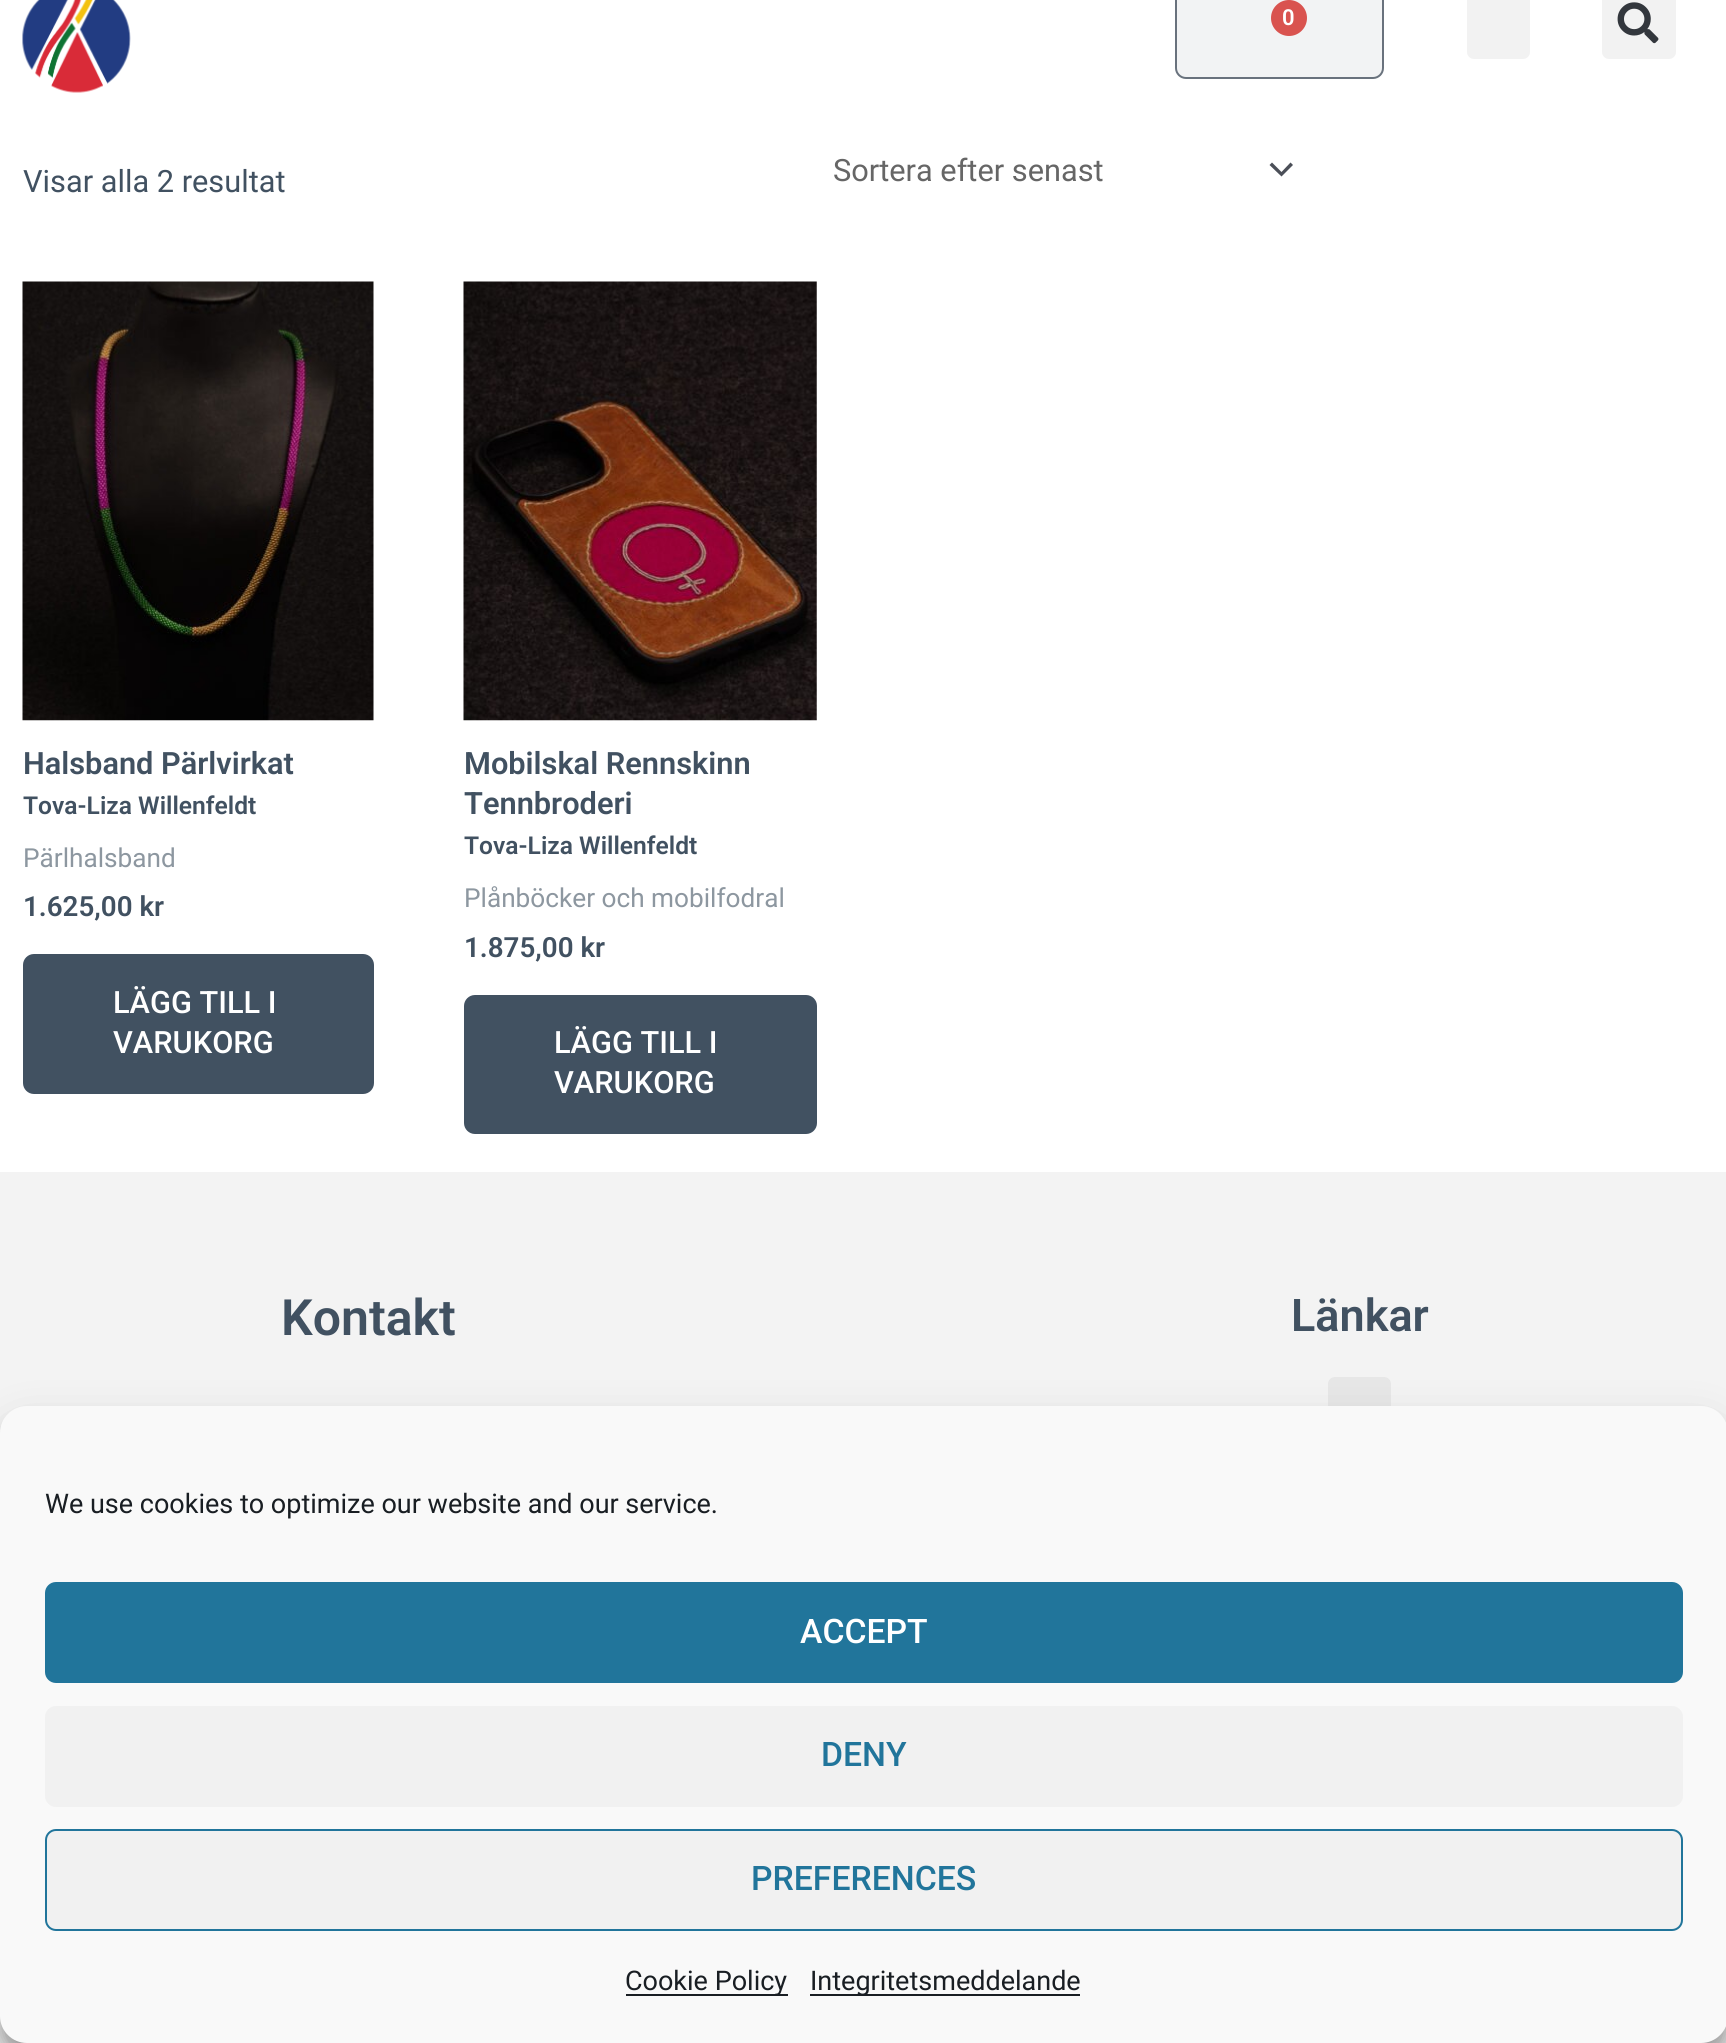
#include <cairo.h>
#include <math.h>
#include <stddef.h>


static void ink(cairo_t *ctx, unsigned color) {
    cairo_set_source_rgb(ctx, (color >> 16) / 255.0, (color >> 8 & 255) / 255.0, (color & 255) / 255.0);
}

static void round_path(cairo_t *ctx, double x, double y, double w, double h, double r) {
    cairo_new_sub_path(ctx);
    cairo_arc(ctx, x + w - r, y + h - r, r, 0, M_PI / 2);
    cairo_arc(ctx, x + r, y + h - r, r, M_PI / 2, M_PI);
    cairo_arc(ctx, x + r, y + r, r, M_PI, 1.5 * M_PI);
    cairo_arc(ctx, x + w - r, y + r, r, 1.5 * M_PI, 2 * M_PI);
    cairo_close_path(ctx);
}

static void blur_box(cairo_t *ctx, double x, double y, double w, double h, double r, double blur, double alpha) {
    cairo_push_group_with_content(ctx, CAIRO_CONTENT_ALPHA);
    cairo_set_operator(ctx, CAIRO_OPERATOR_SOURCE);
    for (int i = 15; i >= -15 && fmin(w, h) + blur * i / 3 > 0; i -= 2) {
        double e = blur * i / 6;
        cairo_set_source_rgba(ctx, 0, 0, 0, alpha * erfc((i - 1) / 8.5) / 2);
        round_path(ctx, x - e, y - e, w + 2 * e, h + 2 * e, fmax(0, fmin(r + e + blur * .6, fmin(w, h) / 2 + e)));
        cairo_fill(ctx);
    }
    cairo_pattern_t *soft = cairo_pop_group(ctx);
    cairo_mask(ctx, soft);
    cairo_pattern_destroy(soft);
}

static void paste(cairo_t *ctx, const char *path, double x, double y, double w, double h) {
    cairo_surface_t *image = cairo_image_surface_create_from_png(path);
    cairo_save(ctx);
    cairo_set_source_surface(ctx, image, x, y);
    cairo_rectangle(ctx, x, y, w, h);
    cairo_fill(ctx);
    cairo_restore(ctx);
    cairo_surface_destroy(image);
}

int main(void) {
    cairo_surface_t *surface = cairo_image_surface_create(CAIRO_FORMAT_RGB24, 1726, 2043);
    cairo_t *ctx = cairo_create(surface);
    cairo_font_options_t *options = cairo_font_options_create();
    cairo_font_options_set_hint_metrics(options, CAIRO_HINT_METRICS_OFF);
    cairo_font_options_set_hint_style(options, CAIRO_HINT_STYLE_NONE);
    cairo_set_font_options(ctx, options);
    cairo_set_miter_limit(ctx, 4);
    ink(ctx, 0xFFFFFF);
    cairo_paint(ctx);
    paste(ctx, "media/1.png", 22, 0, 109, 93);
    ink(ctx, 0xF2F3F4);
    round_path(ctx, 1176, -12, 207, 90, 10);
    cairo_fill_preserve(ctx);
    ink(ctx, 0x69727D);
    cairo_stroke(ctx);
    ink(ctx, 0xD9534F);
    cairo_arc(ctx, 1289, 18, 18, 0, 2 * M_PI);
    cairo_fill(ctx);
    cairo_select_font_face(ctx, "Roboto SemiBold", CAIRO_FONT_SLANT_NORMAL, CAIRO_FONT_WEIGHT_NORMAL);
    cairo_set_font_size(ctx, 22);
    ink(ctx, 0xFFFFFF);
    cairo_move_to(ctx, 1282, 25);
    cairo_show_text(ctx, "0");
    ink(ctx, 0xF2F2F2);
    round_path(ctx, 1467, -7, 63, 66, 7);
    cairo_fill(ctx);
    round_path(ctx, 1602, -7, 74, 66, 7);
    cairo_fill(ctx);
    paste(ctx, "media/2.png", 1617, 2, 42, 42);
    cairo_select_font_face(ctx, "Roboto", CAIRO_FONT_SLANT_NORMAL, CAIRO_FONT_WEIGHT_NORMAL);
    cairo_set_font_size(ctx, 30.75);
    ink(ctx, 0x415161);
    cairo_move_to(ctx, 23, 192);
    cairo_show_text(ctx, "Visar alla 2 resultat");
    ink(ctx, 0x4B4F58);
    cairo_new_path(ctx);
    cairo_move_to(ctx, 1269.5, 165);
    cairo_line_to(ctx, 1281.5, 176.5);
    cairo_line_to(ctx, 1293, 165);
    cairo_line_to(ctx, 1290.5, 162.5);
    cairo_line_to(ctx, 1281.5, 172);
    cairo_line_to(ctx, 1272, 162.5);
    cairo_close_path(ctx);
    cairo_fill(ctx);
    ink(ctx, 0x666666);
    cairo_move_to(ctx, 833, 181);
    cairo_show_text(ctx, "Sortera efter senast");
    paste(ctx, "media/3.png", 22, 281, 352, 440);
    cairo_select_font_face(ctx, "Roboto SemiBold", CAIRO_FONT_SLANT_NORMAL, CAIRO_FONT_WEIGHT_NORMAL);
    ink(ctx, 0x415161);
    cairo_move_to(ctx, 23, 774);
    cairo_show_text(ctx, "Halsband Pärlvirkat");
    cairo_set_font_size(ctx, 24.6);
    cairo_move_to(ctx, 23, 814);
    cairo_show_text(ctx, "Tova-Liza Willenfeldt");
    cairo_select_font_face(ctx, "Roboto", CAIRO_FONT_SLANT_NORMAL, CAIRO_FONT_WEIGHT_NORMAL);
    cairo_set_font_size(ctx, 26.2);
    ink(ctx, 0x8D97A0);
    cairo_move_to(ctx, 23, 867);
    cairo_show_text(ctx, "Pärlhalsband");
    cairo_select_font_face(ctx, "Roboto SemiBold", CAIRO_FONT_SLANT_NORMAL, CAIRO_FONT_WEIGHT_NORMAL);
    cairo_set_font_size(ctx, 27.75);
    ink(ctx, 0x415161);
    cairo_move_to(ctx, 23, 916);
    cairo_show_text(ctx, "1.625,00 kr");
    round_path(ctx, 23, 954, 351, 140, 11);
    cairo_fill(ctx);
    cairo_select_font_face(ctx, "Roboto Medium", CAIRO_FONT_SLANT_NORMAL, CAIRO_FONT_WEIGHT_NORMAL);
    cairo_set_font_size(ctx, 30.75);
    ink(ctx, 0xFFFFFF);
    cairo_move_to(ctx, 113, 1013);
    cairo_show_text(ctx, "LÄGG TILL I");
    cairo_move_to(ctx, 113, 1053);
    cairo_show_text(ctx, "VARUKORG");
    paste(ctx, "media/4.png", 463, 281, 354, 440);
    cairo_select_font_face(ctx, "Roboto SemiBold", CAIRO_FONT_SLANT_NORMAL, CAIRO_FONT_WEIGHT_NORMAL);
    ink(ctx, 0x415161);
    cairo_move_to(ctx, 464, 774);
    cairo_show_text(ctx, "Mobilskal Rennskinn");
    cairo_move_to(ctx, 464, 814);
    cairo_show_text(ctx, "Tennbroderi");
    cairo_set_font_size(ctx, 24.6);
    cairo_move_to(ctx, 464, 854);
    cairo_show_text(ctx, "Tova-Liza Willenfeldt");
    cairo_select_font_face(ctx, "Roboto", CAIRO_FONT_SLANT_NORMAL, CAIRO_FONT_WEIGHT_NORMAL);
    cairo_set_font_size(ctx, 26.2);
    ink(ctx, 0x8D97A0);
    cairo_move_to(ctx, 464, 907);
    cairo_show_text(ctx, "Plånböcker och mobilfodral");
    cairo_select_font_face(ctx, "Roboto SemiBold", CAIRO_FONT_SLANT_NORMAL, CAIRO_FONT_WEIGHT_NORMAL);
    cairo_set_font_size(ctx, 27.75);
    ink(ctx, 0x415161);
    cairo_move_to(ctx, 464, 957);
    cairo_show_text(ctx, "1.875,00 kr");
    round_path(ctx, 464, 995, 353, 139, 11);
    cairo_fill(ctx);
    cairo_select_font_face(ctx, "Roboto Medium", CAIRO_FONT_SLANT_NORMAL, CAIRO_FONT_WEIGHT_NORMAL);
    cairo_set_font_size(ctx, 30.75);
    ink(ctx, 0xFFFFFF);
    cairo_move_to(ctx, 554, 1053);
    cairo_show_text(ctx, "LÄGG TILL I");
    cairo_move_to(ctx, 554, 1093);
    cairo_show_text(ctx, "VARUKORG");
    ink(ctx, 0xF3F3F3);
    cairo_rectangle(ctx, 0, 1172, 1726, 871);
    cairo_fill(ctx);
    cairo_select_font_face(ctx, "Roboto SemiBold", CAIRO_FONT_SLANT_NORMAL, CAIRO_FONT_WEIGHT_NORMAL);
    cairo_set_font_size(ctx, 50);
    ink(ctx, 0x415161);
    cairo_move_to(ctx, 281, 1335);
    cairo_show_text(ctx, "Kontakt");
    cairo_set_font_size(ctx, 45);
    cairo_move_to(ctx, 1291, 1331);
    cairo_show_text(ctx, "Länkar");
    ink(ctx, 0xE7E7E7);
    round_path(ctx, 1328, 1377, 63, 74, 7);
    cairo_fill(ctx);
    ink(ctx, 0x000000);
    blur_box(ctx, 0, 1420, 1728, 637, 27, 7, 0.23);
    blur_box(ctx, 0, 1429, 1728, 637, 27, 22.5, 0.19);
    ink(ctx, 0xF9F9F9);
    round_path(ctx, 0, 1406, 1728, 637, 27);
    cairo_fill(ctx);
    cairo_select_font_face(ctx, "Roboto", CAIRO_FONT_SLANT_NORMAL, CAIRO_FONT_WEIGHT_NORMAL);
    cairo_set_font_size(ctx, 27);
    ink(ctx, 0x191E23);
    cairo_move_to(ctx, 45, 1513);
    cairo_show_text(ctx, "We use cookies to optimize our website and our service.");
    ink(ctx, 0x21759B);
    round_path(ctx, 46, 1583, 1636, 99, 10);
    cairo_fill_preserve(ctx);
    cairo_stroke(ctx);
    cairo_select_font_face(ctx, "Roboto Medium", CAIRO_FONT_SLANT_NORMAL, CAIRO_FONT_WEIGHT_NORMAL);
    cairo_set_font_size(ctx, 33.75);
    ink(ctx, 0xFFFFFF);
    cairo_move_to(ctx, 800, 1643);
    cairo_show_text(ctx, "ACCEPT");
    ink(ctx, 0xF1F1F1);
    round_path(ctx, 45, 1706, 1638, 101, 11);
    cairo_fill(ctx);
    ink(ctx, 0x21759B);
    cairo_move_to(ctx, 821, 1766);
    cairo_show_text(ctx, "DENY");
    ink(ctx, 0xF1F1F1);
    round_path(ctx, 46, 1830, 1636, 100, 10);
    cairo_fill_preserve(ctx);
    ink(ctx, 0x21759B);
    cairo_stroke(ctx);
    cairo_move_to(ctx, 751, 1890);
    cairo_show_text(ctx, "PREFERENCES");
    ink(ctx, 0x191E23);
    cairo_rectangle(ctx, 626, 1994, 162, 2);
    cairo_fill(ctx);
    cairo_select_font_face(ctx, "Roboto", CAIRO_FONT_SLANT_NORMAL, CAIRO_FONT_WEIGHT_NORMAL);
    cairo_set_font_size(ctx, 27);
    cairo_move_to(ctx, 625, 1990);
    cairo_show_text(ctx, "Cookie Policy");
    cairo_rectangle(ctx, 810, 1994, 270, 2);
    cairo_fill(ctx);
    cairo_move_to(ctx, 810, 1990);
    cairo_show_text(ctx, "Integritetsmeddelande");
    cairo_surface_write_to_png(surface, "image.png");
    cairo_font_options_destroy(options);
    cairo_destroy(ctx);
    cairo_surface_destroy(surface);
    return 0;
}
